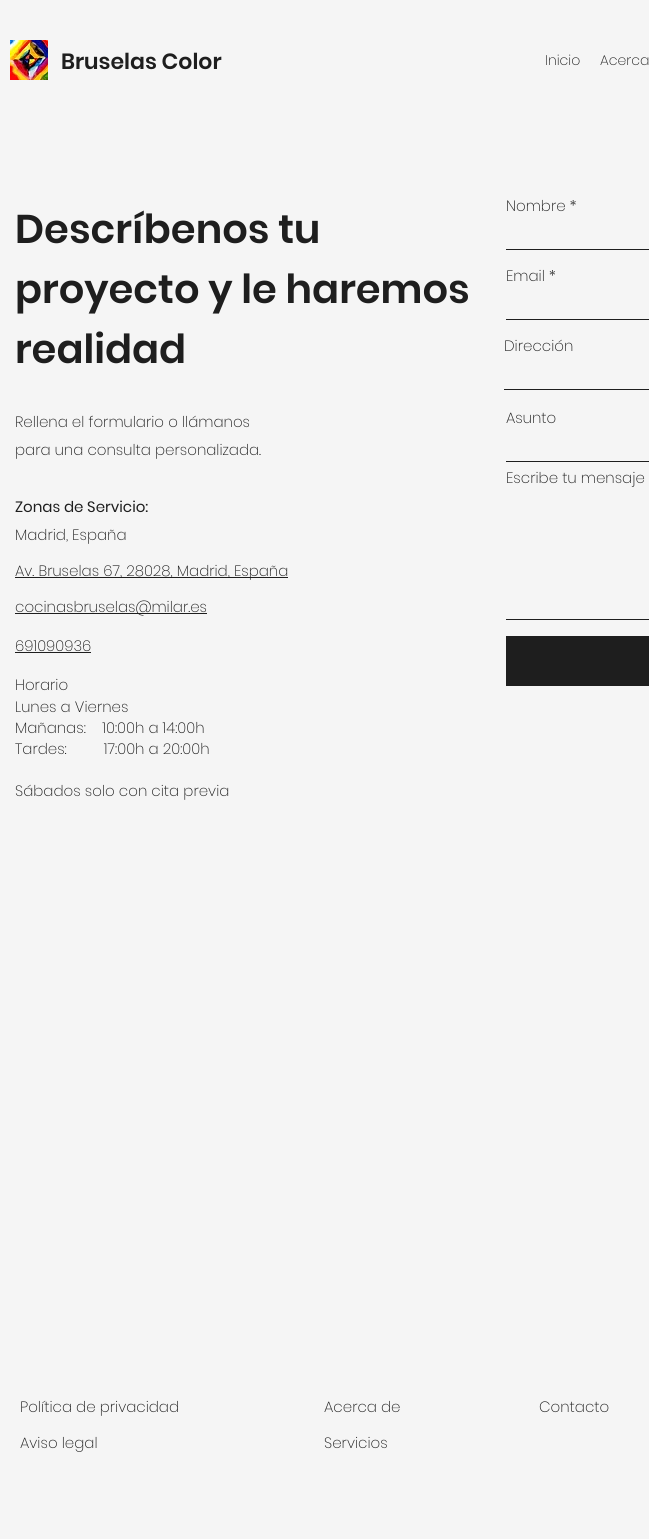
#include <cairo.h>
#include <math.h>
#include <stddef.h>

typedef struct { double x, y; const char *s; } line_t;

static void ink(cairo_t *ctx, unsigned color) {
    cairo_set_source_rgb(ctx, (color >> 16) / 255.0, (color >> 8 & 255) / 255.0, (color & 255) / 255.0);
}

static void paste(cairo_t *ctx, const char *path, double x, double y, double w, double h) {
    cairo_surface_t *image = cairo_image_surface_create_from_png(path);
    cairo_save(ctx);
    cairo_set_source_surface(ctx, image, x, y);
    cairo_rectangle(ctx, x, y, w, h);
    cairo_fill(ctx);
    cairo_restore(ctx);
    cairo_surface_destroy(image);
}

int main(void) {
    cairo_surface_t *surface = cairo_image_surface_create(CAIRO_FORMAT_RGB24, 649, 1539);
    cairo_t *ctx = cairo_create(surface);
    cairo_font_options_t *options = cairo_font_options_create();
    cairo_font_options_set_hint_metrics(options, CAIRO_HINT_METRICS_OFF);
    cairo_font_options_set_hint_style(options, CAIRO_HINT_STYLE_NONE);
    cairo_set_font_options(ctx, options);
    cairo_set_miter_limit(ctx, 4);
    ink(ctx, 0xF5F5F5);
    cairo_paint(ctx);
    paste(ctx, "media/1.png", 10, 40, 38, 40);
    cairo_select_font_face(ctx, "Poppins SemiBold", CAIRO_FONT_SLANT_NORMAL, CAIRO_FONT_WEIGHT_NORMAL);
    cairo_set_font_size(ctx, 22);
    ink(ctx, 0x1E1E1E);
    cairo_move_to(ctx, 61, 69);
    cairo_show_text(ctx, "Bruselas Color");
    cairo_select_font_face(ctx, "Poppins ExtraLight", CAIRO_FONT_SLANT_NORMAL, CAIRO_FONT_WEIGHT_NORMAL);
    cairo_set_font_size(ctx, 14);
    cairo_move_to(ctx, 545, 65);
    cairo_show_text(ctx, "Inicio");
    cairo_move_to(ctx, 600, 65);
    cairo_show_text(ctx, "Acerca");
    cairo_select_font_face(ctx, "Poppins SemiBold", CAIRO_FONT_SLANT_NORMAL, CAIRO_FONT_WEIGHT_NORMAL);
    cairo_set_font_size(ctx, 40);
    {
        static const line_t items[] = {
            {15, 243, "Descríbenos tu"},
            {15, 303, "proyecto y le haremos"},
            {15, 363, "realidad"},
        };
        for (size_t i = 0; i < sizeof items / sizeof *items; i++) {
            cairo_move_to(ctx, items[i].x, items[i].y);
            cairo_show_text(ctx, items[i].s);
        }
    }
    cairo_select_font_face(ctx, "Poppins ExtraLight", CAIRO_FONT_SLANT_NORMAL, CAIRO_FONT_WEIGHT_NORMAL);
    cairo_set_font_size(ctx, 15);
    cairo_move_to(ctx, 15, 427);
    cairo_show_text(ctx, "Rellena el formulario o llámanos");
    cairo_move_to(ctx, 15, 455);
    cairo_show_text(ctx, "para una consulta personalizada.");
    cairo_select_font_face(ctx, "Poppins", CAIRO_FONT_SLANT_NORMAL, CAIRO_FONT_WEIGHT_NORMAL);
    cairo_move_to(ctx, 15, 512);
    cairo_show_text(ctx, "Zonas de Servicio:");
    cairo_select_font_face(ctx, "Poppins ExtraLight", CAIRO_FONT_SLANT_NORMAL, CAIRO_FONT_WEIGHT_NORMAL);
    cairo_move_to(ctx, 15, 540);
    cairo_show_text(ctx, "Madrid, España");
    cairo_rectangle(ctx, 15, 577, 273, 1);
    cairo_fill(ctx);
    cairo_move_to(ctx, 15, 576);
    cairo_show_text(ctx, "Av. Bruselas 67, 28028, Madrid, España");
    cairo_rectangle(ctx, 15, 613, 192, 1);
    cairo_fill(ctx);
    cairo_move_to(ctx, 15, 612);
    cairo_show_text(ctx, "cocinasbruselas@milar.es");
    cairo_move_to(ctx, 15, 651);
    cairo_show_text(ctx, "691090936");
    cairo_rectangle(ctx, 15, 652, 76, 1);
    cairo_fill(ctx);
    {
        static const line_t items[] = {
            {15, 690, "Horario"},
            {15, 712, "Lunes a Viernes"},
            {15, 733, "Mañanas:    10:00h a 14:00h"},
            {15, 754, "Tardes:         17:00h a 20:00h"},
            {15, 796, "Sábados solo con cita previa"},
            {506, 211, "Nombre *"},
        };
        for (size_t i = 0; i < sizeof items / sizeof *items; i++) {
            cairo_move_to(ctx, items[i].x, items[i].y);
            cairo_show_text(ctx, items[i].s);
        }
    }
    cairo_rectangle(ctx, 506, 249, 143, 1);
    cairo_fill(ctx);
    cairo_move_to(ctx, 506, 281);
    cairo_show_text(ctx, "Email *");
    cairo_rectangle(ctx, 506, 319, 143, 1);
    cairo_fill(ctx);
    cairo_move_to(ctx, 504, 351);
    cairo_show_text(ctx, "Dirección");
    cairo_rectangle(ctx, 504, 389, 145, 1);
    cairo_fill(ctx);
    cairo_move_to(ctx, 506, 423);
    cairo_show_text(ctx, "Asunto");
    cairo_rectangle(ctx, 506, 461, 143, 1);
    cairo_fill(ctx);
    cairo_move_to(ctx, 506, 483);
    cairo_show_text(ctx, "Escribe tu mensaje");
    cairo_rectangle(ctx, 506, 619, 143, 1);
    cairo_fill(ctx);
    cairo_rectangle(ctx, 506, 636, 143, 50);
    cairo_fill(ctx);
    {
        static const line_t items[] = {
            {20, 1412, "Política de privacidad"},
            {324, 1412, "Acerca de"},
            {539, 1412, "Contacto"},
            {20, 1448, "Aviso legal"},
            {324, 1448, "Servicios"},
        };
        for (size_t i = 0; i < sizeof items / sizeof *items; i++) {
            cairo_move_to(ctx, items[i].x, items[i].y);
            cairo_show_text(ctx, items[i].s);
        }
    }
    cairo_surface_write_to_png(surface, "image.png");
    cairo_font_options_destroy(options);
    cairo_destroy(ctx);
    cairo_surface_destroy(surface);
    return 0;
}
